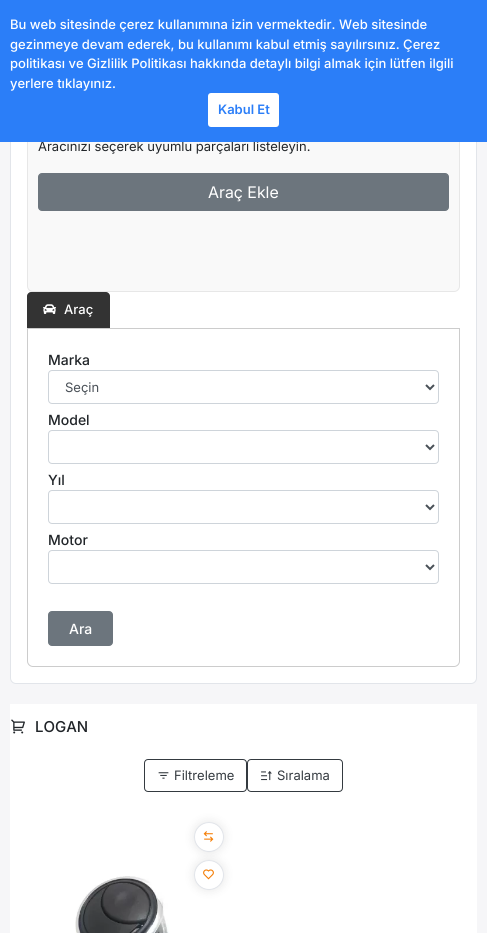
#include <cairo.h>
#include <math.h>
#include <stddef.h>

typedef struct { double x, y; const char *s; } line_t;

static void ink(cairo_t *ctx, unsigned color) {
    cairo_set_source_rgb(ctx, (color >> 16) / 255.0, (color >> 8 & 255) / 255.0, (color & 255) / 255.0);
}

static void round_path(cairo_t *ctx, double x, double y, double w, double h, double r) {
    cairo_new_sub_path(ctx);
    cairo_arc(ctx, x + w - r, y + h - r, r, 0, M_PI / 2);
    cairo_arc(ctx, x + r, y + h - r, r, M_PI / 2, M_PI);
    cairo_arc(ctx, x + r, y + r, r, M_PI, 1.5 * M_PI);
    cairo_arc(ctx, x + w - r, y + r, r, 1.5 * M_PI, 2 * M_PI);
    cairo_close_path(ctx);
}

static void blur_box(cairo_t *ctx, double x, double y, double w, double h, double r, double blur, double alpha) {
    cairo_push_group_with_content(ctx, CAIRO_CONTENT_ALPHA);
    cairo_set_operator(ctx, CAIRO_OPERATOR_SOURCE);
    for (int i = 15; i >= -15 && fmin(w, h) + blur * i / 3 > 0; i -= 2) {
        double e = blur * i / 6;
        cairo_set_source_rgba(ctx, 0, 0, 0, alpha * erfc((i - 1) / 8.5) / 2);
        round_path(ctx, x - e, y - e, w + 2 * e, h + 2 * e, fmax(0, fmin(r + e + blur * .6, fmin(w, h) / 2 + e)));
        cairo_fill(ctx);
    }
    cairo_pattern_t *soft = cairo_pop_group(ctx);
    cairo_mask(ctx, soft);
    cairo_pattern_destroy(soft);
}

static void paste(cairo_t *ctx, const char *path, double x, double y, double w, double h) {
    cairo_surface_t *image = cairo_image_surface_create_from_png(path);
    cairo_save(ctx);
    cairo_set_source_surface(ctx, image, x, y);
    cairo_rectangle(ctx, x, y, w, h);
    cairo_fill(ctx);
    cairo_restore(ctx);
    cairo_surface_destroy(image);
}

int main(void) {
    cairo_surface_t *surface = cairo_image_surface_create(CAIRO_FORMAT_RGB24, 487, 933);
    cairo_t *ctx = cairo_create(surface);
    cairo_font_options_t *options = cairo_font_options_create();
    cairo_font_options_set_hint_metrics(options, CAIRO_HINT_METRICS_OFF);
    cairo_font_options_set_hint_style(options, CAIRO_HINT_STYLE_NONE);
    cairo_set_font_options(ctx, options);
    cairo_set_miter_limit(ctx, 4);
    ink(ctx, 0xF6F6F8);
    cairo_paint(ctx);
    ink(ctx, 0xFFFFFF);
    round_path(ctx, 10.5, 80.5, 466, 603, 5.5);
    cairo_fill_preserve(ctx);
    ink(ctx, 0xE2E5EA);
    cairo_set_line_width(ctx, 1);
    cairo_stroke(ctx);
    ink(ctx, 0xF9F9F9);
    round_path(ctx, 27.5, 97.5, 432, 194, 5.5);
    cairo_fill_preserve(ctx);
    ink(ctx, 0xE7E7E7);
    cairo_stroke(ctx);
    cairo_select_font_face(ctx, "Inter", CAIRO_FONT_SLANT_NORMAL, CAIRO_FONT_WEIGHT_NORMAL);
    cairo_set_font_size(ctx, 13);
    ink(ctx, 0x212529);
    cairo_move_to(ctx, 38, 151);
    cairo_show_text(ctx, "Aracınızı seçerek uyumlu parçaları listeleyin.");
    ink(ctx, 0x2B7EF8);
    cairo_rectangle(ctx, 0, 0, 487, 142);
    cairo_fill(ctx);
    cairo_select_font_face(ctx, "Inter Medium", CAIRO_FONT_SLANT_NORMAL, CAIRO_FONT_WEIGHT_NORMAL);
    ink(ctx, 0xFFFFFF);
    {
        static const line_t items[] = {
            {10, 29, "Bu web sitesinde çerez kullanımına izin vermektedir. Web sitesinde"},
            {10, 49, "gezinmeye devam ederek, bu kullanımı kabul etmiş sayılırsınız. Çerez"},
            {10, 68, "politikası ve Gizlilik Politikası hakkında detaylı bilgi almak için lütfen ilgili"},
            {10, 88, "yerlere tıklayınız."},
        };
        for (size_t i = 0; i < sizeof items / sizeof *items; i++) {
            cairo_move_to(ctx, items[i].x, items[i].y);
            cairo_show_text(ctx, items[i].s);
        }
    }
    round_path(ctx, 208, 93, 71, 34, 3);
    cairo_fill(ctx);
    cairo_select_font_face(ctx, "Inter SemiBold", CAIRO_FONT_SLANT_NORMAL, CAIRO_FONT_WEIGHT_NORMAL);
    ink(ctx, 0x2B7EF8);
    cairo_move_to(ctx, 218, 114);
    cairo_show_text(ctx, "Kabul Et");
    ink(ctx, 0x6C757D);
    round_path(ctx, 38.5, 173.5, 410, 37, 3.5);
    cairo_fill_preserve(ctx);
    cairo_stroke(ctx);
    cairo_select_font_face(ctx, "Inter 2", CAIRO_FONT_SLANT_NORMAL, CAIRO_FONT_WEIGHT_NORMAL);
    cairo_set_font_size(ctx, 16);
    ink(ctx, 0xFFFFFF);
    cairo_move_to(ctx, 208, 198);
    cairo_show_text(ctx, "Araç Ekle");
    ink(ctx, 0x333333);
    cairo_new_path(ctx);
    cairo_move_to(ctx, 31, 292);
    cairo_line_to(ctx, 106, 292);
    cairo_curve_to(ctx, 108, 292, 110, 294, 110, 296);
    cairo_line_to(ctx, 110, 328);
    cairo_line_to(ctx, 27, 328);
    cairo_line_to(ctx, 27, 296);
    cairo_curve_to(ctx, 27, 294, 29, 292, 31, 292);
    cairo_close_path(ctx);
    cairo_fill(ctx);
    paste(ctx, "media/1.png", 43, 304, 13, 10);
    cairo_select_font_face(ctx, "Inter Medium", CAIRO_FONT_SLANT_NORMAL, CAIRO_FONT_WEIGHT_NORMAL);
    cairo_set_font_size(ctx, 13);
    ink(ctx, 0xFFFFFF);
    cairo_move_to(ctx, 64, 314);
    cairo_show_text(ctx, "Araç");
    cairo_new_path(ctx);
    cairo_move_to(ctx, 27.5, 328.5);
    cairo_line_to(ctx, 459.5, 328.5);
    cairo_line_to(ctx, 459.5, 661);
    cairo_curve_to(ctx, 459.5, 664, 457, 666.5, 454, 666.5);
    cairo_line_to(ctx, 33, 666.5);
    cairo_curve_to(ctx, 30, 666.5, 27.5, 664, 27.5, 661);
    cairo_close_path(ctx);
    ink(ctx, 0xCCCCCC);
    cairo_stroke(ctx);
    cairo_set_font_size(ctx, 14);
    ink(ctx, 0x212529);
    cairo_move_to(ctx, 48, 365);
    cairo_show_text(ctx, "Marka");
    round_path(ctx, 48.5, 370.5, 390, 33, 3.5);
    ink(ctx, 0xCED4DA);
    cairo_stroke(ctx);
    cairo_new_path(ctx);
    cairo_move_to(ctx, 426, 385);
    cairo_line_to(ctx, 430, 389);
    cairo_line_to(ctx, 434, 385);
    ink(ctx, 0x495057);
    cairo_set_line_width(ctx, 2);
    cairo_stroke(ctx);
    cairo_select_font_face(ctx, "Inter", CAIRO_FONT_SLANT_NORMAL, CAIRO_FONT_WEIGHT_NORMAL);
    cairo_set_font_size(ctx, 13);
    cairo_move_to(ctx, 65, 392);
    cairo_show_text(ctx, "Seçin");
    cairo_select_font_face(ctx, "Inter Medium", CAIRO_FONT_SLANT_NORMAL, CAIRO_FONT_WEIGHT_NORMAL);
    cairo_set_font_size(ctx, 14);
    ink(ctx, 0x212529);
    cairo_move_to(ctx, 48, 425);
    cairo_show_text(ctx, "Model");
    round_path(ctx, 48.5, 430.5, 390, 33, 3.5);
    ink(ctx, 0xCED4DA);
    cairo_set_line_width(ctx, 1);
    cairo_stroke(ctx);
    cairo_new_path(ctx);
    cairo_move_to(ctx, 426, 445);
    cairo_line_to(ctx, 430, 449);
    cairo_line_to(ctx, 434, 445);
    ink(ctx, 0x495057);
    cairo_set_line_width(ctx, 2);
    cairo_stroke(ctx);
    ink(ctx, 0x212529);
    cairo_move_to(ctx, 48, 485);
    cairo_show_text(ctx, "Yıl");
    round_path(ctx, 48.5, 490.5, 390, 33, 3.5);
    ink(ctx, 0xCED4DA);
    cairo_set_line_width(ctx, 1);
    cairo_stroke(ctx);
    cairo_new_path(ctx);
    cairo_move_to(ctx, 426, 505);
    cairo_line_to(ctx, 430, 509);
    cairo_line_to(ctx, 434, 505);
    ink(ctx, 0x495057);
    cairo_set_line_width(ctx, 2);
    cairo_stroke(ctx);
    ink(ctx, 0x212529);
    cairo_move_to(ctx, 48, 545);
    cairo_show_text(ctx, "Motor");
    round_path(ctx, 48.5, 550.5, 390, 33, 3.5);
    ink(ctx, 0xCED4DA);
    cairo_set_line_width(ctx, 1);
    cairo_stroke(ctx);
    cairo_new_path(ctx);
    cairo_move_to(ctx, 426, 565);
    cairo_line_to(ctx, 430, 569);
    cairo_line_to(ctx, 434, 565);
    ink(ctx, 0x495057);
    cairo_set_line_width(ctx, 2);
    cairo_stroke(ctx);
    ink(ctx, 0x6C757D);
    round_path(ctx, 48.5, 611.5, 64, 34, 3.5);
    cairo_fill_preserve(ctx);
    cairo_set_line_width(ctx, 1);
    cairo_stroke(ctx);
    ink(ctx, 0xFFFFFF);
    cairo_move_to(ctx, 69, 634);
    cairo_show_text(ctx, "Ara");
    cairo_rectangle(ctx, 10, 704, 467, 229);
    cairo_fill(ctx);
    paste(ctx, "media/2.png", 11, 719, 14, 15);
    cairo_set_font_size(ctx, 15);
    ink(ctx, 0x212529);
    cairo_move_to(ctx, 35, 732);
    cairo_show_text(ctx, "LOGAN");
    round_path(ctx, 144.5, 759.5, 102, 32, 3.5);
    ink(ctx, 0x343A40);
    cairo_stroke(ctx);
    paste(ctx, "media/3.png", 158, 772, 11, 7);
    cairo_select_font_face(ctx, "Inter", CAIRO_FONT_SLANT_NORMAL, CAIRO_FONT_WEIGHT_NORMAL);
    cairo_set_font_size(ctx, 13);
    cairo_move_to(ctx, 174, 780);
    cairo_show_text(ctx, "Filtreleme");
    round_path(ctx, 247.5, 759.5, 95, 32, 3.5);
    cairo_stroke(ctx);
    paste(ctx, "media/4.png", 261, 771, 11, 10);
    cairo_move_to(ctx, 277, 780);
    cairo_show_text(ctx, "Sıralama");
    paste(ctx, "media/5.png", 75, 876, 94, 57);
    ink(ctx, 0x000000);
    blur_box(ctx, 194, 822, 30, 30, 15, 5, 0.1);
    ink(ctx, 0xFFFFFF);
    cairo_arc(ctx, 209, 837, 14.5, 0, 2 * M_PI);
    cairo_fill_preserve(ctx);
    ink(ctx, 0xE2E5EA);
    cairo_stroke(ctx);
    paste(ctx, "media/6.png", 203, 831, 11, 11);
    ink(ctx, 0x000000);
    blur_box(ctx, 194, 860, 30, 30, 15, 5, 0.1);
    ink(ctx, 0xFFFFFF);
    cairo_arc(ctx, 209, 875, 14.5, 0, 2 * M_PI);
    cairo_fill_preserve(ctx);
    ink(ctx, 0xE2E5EA);
    cairo_stroke(ctx);
    paste(ctx, "media/7.png", 203, 869, 11, 11);
    cairo_surface_write_to_png(surface, "image.png");
    cairo_font_options_destroy(options);
    cairo_destroy(ctx);
    cairo_surface_destroy(surface);
    return 0;
}
